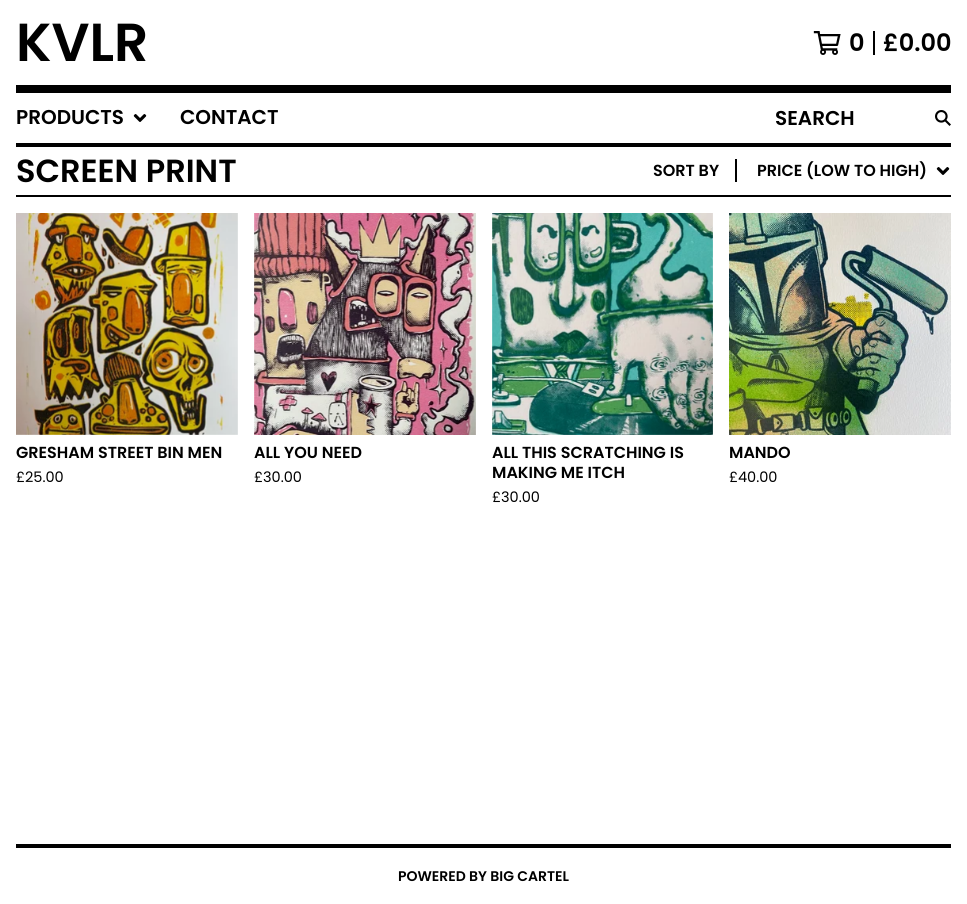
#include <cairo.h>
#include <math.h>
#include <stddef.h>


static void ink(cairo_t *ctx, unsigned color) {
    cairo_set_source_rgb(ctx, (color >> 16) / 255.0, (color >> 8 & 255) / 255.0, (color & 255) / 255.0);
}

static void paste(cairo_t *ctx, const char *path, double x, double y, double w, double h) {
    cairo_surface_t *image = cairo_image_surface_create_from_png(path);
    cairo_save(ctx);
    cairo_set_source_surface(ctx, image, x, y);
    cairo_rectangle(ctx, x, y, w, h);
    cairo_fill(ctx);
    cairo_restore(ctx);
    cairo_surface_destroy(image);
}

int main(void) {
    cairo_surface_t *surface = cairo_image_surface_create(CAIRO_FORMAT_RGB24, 967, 904);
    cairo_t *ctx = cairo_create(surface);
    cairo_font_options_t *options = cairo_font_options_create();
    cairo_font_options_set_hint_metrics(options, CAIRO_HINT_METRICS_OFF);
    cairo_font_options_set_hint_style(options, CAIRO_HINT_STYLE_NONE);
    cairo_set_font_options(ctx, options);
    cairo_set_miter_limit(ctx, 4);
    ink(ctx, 0xFFFFFF);
    cairo_paint(ctx);
    ink(ctx, 0x000000);
    cairo_rectangle(ctx, 16, 85, 935, 8);
    cairo_fill(ctx);
    cairo_select_font_face(ctx, "Poppins SemiBold", CAIRO_FONT_SLANT_NORMAL, CAIRO_FONT_WEIGHT_NORMAL);
    cairo_set_font_size(ctx, 53.5);
    cairo_move_to(ctx, 16, 61);
    cairo_show_text(ctx, "KVLR");
    paste(ctx, "media/1.png", 813, 31, 28, 24);
    cairo_rectangle(ctx, 873, 31, 2, 24);
    cairo_fill(ctx);
    cairo_set_font_size(ctx, 24);
    cairo_move_to(ctx, 849, 51);
    cairo_show_text(ctx, "0");
    cairo_move_to(ctx, 883, 51);
    cairo_show_text(ctx, "£0.00");
    cairo_rectangle(ctx, 16, 143, 935, 4);
    cairo_fill(ctx);
    cairo_set_font_size(ctx, 20);
    cairo_move_to(ctx, 16, 124);
    cairo_show_text(ctx, "PRODUCTS");
    paste(ctx, "media/2.png", 133, 114, 14, 8);
    cairo_move_to(ctx, 180, 124);
    cairo_show_text(ctx, "CONTACT");
    cairo_move_to(ctx, 775, 125);
    cairo_show_text(ctx, "SEARCH");
    paste(ctx, "media/3.png", 935, 110, 16, 16);
    cairo_rectangle(ctx, 16, 195, 935, 2);
    cairo_fill(ctx);
    cairo_set_font_size(ctx, 32);
    cairo_move_to(ctx, 16, 182);
    cairo_show_text(ctx, "SCREEN PRINT");
    cairo_set_font_size(ctx, 16);
    cairo_move_to(ctx, 653, 176);
    cairo_show_text(ctx, "SORT BY");
    cairo_rectangle(ctx, 735, 159, 2, 23);
    cairo_fill(ctx);
    cairo_move_to(ctx, 757, 176);
    cairo_show_text(ctx, "PRICE (LOW TO HIGH)");
    paste(ctx, "media/2.png", 936, 167, 14, 8);
    paste(ctx, "media/4.png", 16, 213, 222, 222);
    cairo_move_to(ctx, 16, 458);
    cairo_show_text(ctx, "GRESHAM STREET BIN MEN");
    cairo_select_font_face(ctx, "Poppins", CAIRO_FONT_SLANT_NORMAL, CAIRO_FONT_WEIGHT_NORMAL);
    cairo_set_font_size(ctx, 14.5);
    cairo_move_to(ctx, 16, 482);
    cairo_show_text(ctx, "£25.00");
    paste(ctx, "media/5.png", 254, 213, 222, 222);
    cairo_select_font_face(ctx, "Poppins SemiBold", CAIRO_FONT_SLANT_NORMAL, CAIRO_FONT_WEIGHT_NORMAL);
    cairo_set_font_size(ctx, 16);
    cairo_move_to(ctx, 254, 458);
    cairo_show_text(ctx, "ALL YOU NEED");
    cairo_select_font_face(ctx, "Poppins", CAIRO_FONT_SLANT_NORMAL, CAIRO_FONT_WEIGHT_NORMAL);
    cairo_set_font_size(ctx, 14.5);
    cairo_move_to(ctx, 254, 482);
    cairo_show_text(ctx, "£30.00");
    paste(ctx, "media/6.png", 492, 213, 221, 222);
    cairo_select_font_face(ctx, "Poppins SemiBold", CAIRO_FONT_SLANT_NORMAL, CAIRO_FONT_WEIGHT_NORMAL);
    cairo_set_font_size(ctx, 16);
    cairo_move_to(ctx, 492, 458);
    cairo_show_text(ctx, "ALL THIS SCRATCHING IS");
    cairo_move_to(ctx, 492, 478);
    cairo_show_text(ctx, "MAKING ME ITCH");
    cairo_select_font_face(ctx, "Poppins", CAIRO_FONT_SLANT_NORMAL, CAIRO_FONT_WEIGHT_NORMAL);
    cairo_set_font_size(ctx, 14.5);
    cairo_move_to(ctx, 492, 502);
    cairo_show_text(ctx, "£30.00");
    paste(ctx, "media/7.png", 729, 213, 222, 222);
    cairo_select_font_face(ctx, "Poppins SemiBold", CAIRO_FONT_SLANT_NORMAL, CAIRO_FONT_WEIGHT_NORMAL);
    cairo_set_font_size(ctx, 16);
    cairo_move_to(ctx, 729, 458);
    cairo_show_text(ctx, "MANDO");
    cairo_select_font_face(ctx, "Poppins", CAIRO_FONT_SLANT_NORMAL, CAIRO_FONT_WEIGHT_NORMAL);
    cairo_set_font_size(ctx, 14.5);
    cairo_move_to(ctx, 729, 482);
    cairo_show_text(ctx, "£40.00");
    cairo_rectangle(ctx, 16, 844, 935, 4);
    cairo_fill(ctx);
    cairo_select_font_face(ctx, "Poppins SemiBold", CAIRO_FONT_SLANT_NORMAL, CAIRO_FONT_WEIGHT_NORMAL);
    cairo_set_font_size(ctx, 14);
    cairo_move_to(ctx, 398, 881);
    cairo_show_text(ctx, "POWERED BY BIG CARTEL");
    cairo_surface_write_to_png(surface, "image.png");
    cairo_font_options_destroy(options);
    cairo_destroy(ctx);
    cairo_surface_destroy(surface);
    return 0;
}
